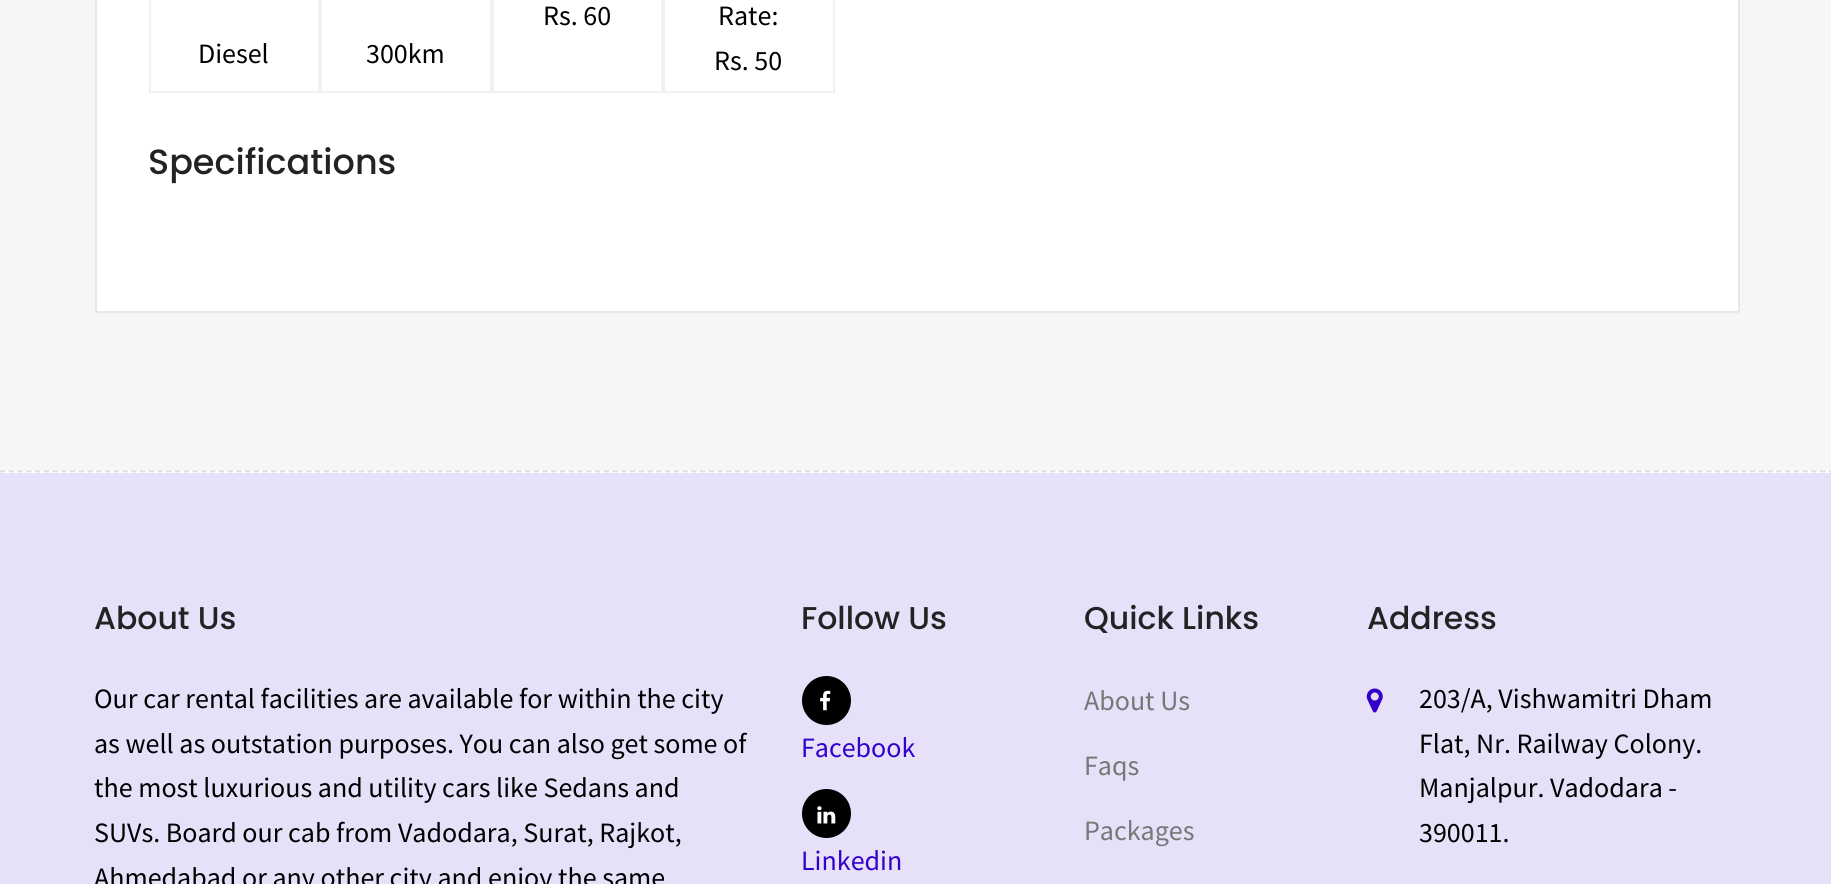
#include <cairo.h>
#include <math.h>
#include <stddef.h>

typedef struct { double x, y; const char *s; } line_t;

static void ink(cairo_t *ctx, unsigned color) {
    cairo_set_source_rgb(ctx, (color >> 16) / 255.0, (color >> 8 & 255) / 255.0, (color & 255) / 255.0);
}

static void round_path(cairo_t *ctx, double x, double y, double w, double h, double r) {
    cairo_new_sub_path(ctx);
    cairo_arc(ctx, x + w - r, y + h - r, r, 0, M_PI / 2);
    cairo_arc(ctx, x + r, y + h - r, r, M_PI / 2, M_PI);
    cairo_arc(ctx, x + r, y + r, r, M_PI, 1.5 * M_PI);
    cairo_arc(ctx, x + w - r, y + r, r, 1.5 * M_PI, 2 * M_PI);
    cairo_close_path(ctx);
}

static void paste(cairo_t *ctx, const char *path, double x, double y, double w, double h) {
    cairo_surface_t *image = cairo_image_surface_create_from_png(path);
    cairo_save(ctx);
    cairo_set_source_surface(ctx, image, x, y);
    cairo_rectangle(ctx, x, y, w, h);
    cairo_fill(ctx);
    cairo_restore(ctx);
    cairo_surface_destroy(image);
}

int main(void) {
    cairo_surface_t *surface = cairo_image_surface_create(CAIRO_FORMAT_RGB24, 1831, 884);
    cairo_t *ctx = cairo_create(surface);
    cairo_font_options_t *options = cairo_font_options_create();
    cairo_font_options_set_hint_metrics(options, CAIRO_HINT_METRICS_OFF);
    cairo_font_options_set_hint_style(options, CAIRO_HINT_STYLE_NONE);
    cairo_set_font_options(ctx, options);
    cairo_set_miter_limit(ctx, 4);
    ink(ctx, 0xFFFFFF);
    cairo_paint(ctx);
    ink(ctx, 0xF6F6F6);
    cairo_rectangle(ctx, 0, 0, 1831, 471);
    cairo_fill(ctx);
    ink(ctx, 0xFFFFFF);
    round_path(ctx, 96, -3, 1643, 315, 1);
    cairo_fill_preserve(ctx);
    ink(ctx, 0xE7E7E7);
    cairo_stroke(ctx);
    cairo_rectangle(ctx, 150, -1, 169, 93);
    ink(ctx, 0xF1F1F1);
    cairo_stroke(ctx);
    cairo_select_font_face(ctx, "Source Sans Pro", CAIRO_FONT_SLANT_NORMAL, CAIRO_FONT_WEIGHT_NORMAL);
    cairo_set_font_size(ctx, 28);
    ink(ctx, 0x000000);
    cairo_move_to(ctx, 198, 63);
    cairo_show_text(ctx, "Diesel");
    cairo_rectangle(ctx, 321, -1, 170, 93);
    ink(ctx, 0xF1F1F1);
    cairo_stroke(ctx);
    ink(ctx, 0x000000);
    cairo_move_to(ctx, 366, 63);
    cairo_show_text(ctx, "300km");
    cairo_rectangle(ctx, 493, -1, 169, 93);
    ink(ctx, 0xF1F1F1);
    cairo_stroke(ctx);
    ink(ctx, 0x000000);
    cairo_move_to(ctx, 543, 25);
    cairo_show_text(ctx, "Rs. 60");
    cairo_rectangle(ctx, 664, -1, 170, 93);
    ink(ctx, 0xF1F1F1);
    cairo_stroke(ctx);
    ink(ctx, 0x000000);
    cairo_move_to(ctx, 718, 25);
    cairo_show_text(ctx, "Rate:");
    cairo_move_to(ctx, 714, 70);
    cairo_show_text(ctx, "Rs. 50");
    cairo_select_font_face(ctx, "Poppins Medium", CAIRO_FONT_SLANT_NORMAL, CAIRO_FONT_WEIGHT_NORMAL);
    cairo_set_font_size(ctx, 35);
    ink(ctx, 0x232323);
    cairo_move_to(ctx, 148, 174);
    cairo_show_text(ctx, "Specifications");
    cairo_new_path(ctx);
    cairo_move_to(ctx, 0, 471.5);
    cairo_line_to(ctx, 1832, 471.5);
    ink(ctx, 0xDDDDDD);
    cairo_set_line_width(ctx, 1.8);
    cairo_set_dash(ctx, (double[]){5.25, 3.5}, 2, 0);
    cairo_stroke(ctx);
    ink(ctx, 0xE6E0F9);
    cairo_rectangle(ctx, 0, 473, 1831, 411);
    cairo_fill(ctx);
    cairo_set_font_size(ctx, 31.5);
    ink(ctx, 0x232323);
    cairo_move_to(ctx, 94, 629);
    cairo_show_text(ctx, "About Us");
    cairo_select_font_face(ctx, "Source Sans Pro", CAIRO_FONT_SLANT_NORMAL, CAIRO_FONT_WEIGHT_NORMAL);
    cairo_set_font_size(ctx, 28);
    ink(ctx, 0x000000);
    {
        static const line_t items[] = {
            {94, 708, "Our car rental facilities are available for within the city"},
            {94, 753, "as well as outstation purposes. You can also get some of"},
            {94, 797, "the most luxurious and utility cars like Sedans and"},
            {94, 842, "SUVs. Board our cab from Vadodara, Surat, Rajkot,"},
            {94, 887, "Ahmedabad or any other city and enjoy the same"},
        };
        for (size_t i = 0; i < sizeof items / sizeof *items; i++) {
            cairo_move_to(ctx, items[i].x, items[i].y);
            cairo_show_text(ctx, items[i].s);
        }
    }
    cairo_select_font_face(ctx, "Poppins Medium", CAIRO_FONT_SLANT_NORMAL, CAIRO_FONT_WEIGHT_NORMAL);
    cairo_set_font_size(ctx, 31.5);
    ink(ctx, 0x232323);
    cairo_move_to(ctx, 801, 629);
    cairo_show_text(ctx, "Follow Us");
    ink(ctx, 0x000000);
    cairo_new_path(ctx);
    cairo_arc(ctx, 826.5, 700.5, 24.5, 0, 2 * M_PI);
    cairo_fill(ctx);
    paste(ctx, "media/1.png", 820, 690, 11, 21);
    cairo_select_font_face(ctx, "Source Sans Pro", CAIRO_FONT_SLANT_NORMAL, CAIRO_FONT_WEIGHT_NORMAL);
    cairo_set_font_size(ctx, 28);
    ink(ctx, 0x3300CC);
    cairo_move_to(ctx, 801, 757);
    cairo_show_text(ctx, "Facebook");
    ink(ctx, 0x000000);
    cairo_new_path(ctx);
    cairo_arc(ctx, 826.5, 813.5, 24.5, 0, 2 * M_PI);
    cairo_fill(ctx);
    paste(ctx, "media/2.png", 817, 806, 19, 18);
    ink(ctx, 0x3300CC);
    cairo_move_to(ctx, 801, 870);
    cairo_show_text(ctx, "Linkedin");
    cairo_select_font_face(ctx, "Poppins Medium", CAIRO_FONT_SLANT_NORMAL, CAIRO_FONT_WEIGHT_NORMAL);
    cairo_set_font_size(ctx, 31.5);
    ink(ctx, 0x232323);
    cairo_move_to(ctx, 1084, 629);
    cairo_show_text(ctx, "Quick Links");
    cairo_select_font_face(ctx, "Source Sans Pro", CAIRO_FONT_SLANT_NORMAL, CAIRO_FONT_WEIGHT_NORMAL);
    cairo_set_font_size(ctx, 28);
    ink(ctx, 0x777777);
    {
        static const line_t items[] = {
            {1084, 710, "About Us"},
            {1084, 775, "Faqs"},
            {1084, 840, "Packages"},
        };
        for (size_t i = 0; i < sizeof items / sizeof *items; i++) {
            cairo_move_to(ctx, items[i].x, items[i].y);
            cairo_show_text(ctx, items[i].s);
        }
    }
    cairo_select_font_face(ctx, "Poppins Medium", CAIRO_FONT_SLANT_NORMAL, CAIRO_FONT_WEIGHT_NORMAL);
    cairo_set_font_size(ctx, 31.5);
    ink(ctx, 0x232323);
    cairo_move_to(ctx, 1367, 629);
    cairo_show_text(ctx, "Address");
    paste(ctx, "media/3.png", 1366, 688, 17, 25);
    cairo_select_font_face(ctx, "Source Sans Pro", CAIRO_FONT_SLANT_NORMAL, CAIRO_FONT_WEIGHT_NORMAL);
    cairo_set_font_size(ctx, 28);
    ink(ctx, 0x000000);
    {
        static const line_t items[] = {
            {1419, 708, "203/A, Vishwamitri Dham"},
            {1419, 753, "Flat, Nr. Railway Colony."},
            {1419, 797, "Manjalpur. Vadodara -"},
            {1419, 842, "390011."},
        };
        for (size_t i = 0; i < sizeof items / sizeof *items; i++) {
            cairo_move_to(ctx, items[i].x, items[i].y);
            cairo_show_text(ctx, items[i].s);
        }
    }
    cairo_surface_write_to_png(surface, "image.png");
    cairo_font_options_destroy(options);
    cairo_destroy(ctx);
    cairo_surface_destroy(surface);
    return 0;
}
